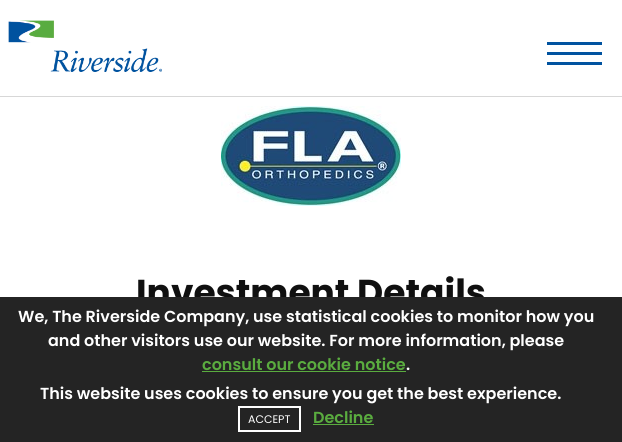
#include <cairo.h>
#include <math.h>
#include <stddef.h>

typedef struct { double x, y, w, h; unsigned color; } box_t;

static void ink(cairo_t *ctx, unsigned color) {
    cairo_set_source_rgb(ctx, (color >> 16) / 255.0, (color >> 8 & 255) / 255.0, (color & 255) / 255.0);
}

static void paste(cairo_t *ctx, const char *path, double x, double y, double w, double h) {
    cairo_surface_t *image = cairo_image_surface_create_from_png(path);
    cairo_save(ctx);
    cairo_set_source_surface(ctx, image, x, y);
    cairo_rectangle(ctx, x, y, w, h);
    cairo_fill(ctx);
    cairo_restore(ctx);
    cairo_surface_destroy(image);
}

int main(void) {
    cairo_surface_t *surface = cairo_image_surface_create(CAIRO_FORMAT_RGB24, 622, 442);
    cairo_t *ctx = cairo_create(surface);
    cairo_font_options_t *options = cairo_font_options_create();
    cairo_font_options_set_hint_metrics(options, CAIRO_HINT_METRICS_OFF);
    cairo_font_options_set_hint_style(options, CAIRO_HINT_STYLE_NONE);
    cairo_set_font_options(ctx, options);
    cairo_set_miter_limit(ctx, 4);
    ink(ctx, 0xFFFFFF);
    cairo_paint(ctx);
    ink(ctx, 0xD7D7D7);
    cairo_rectangle(ctx, 0, 96, 622, 1);
    cairo_fill(ctx);
    paste(ctx, "media/1.png", 8, 20, 154, 52);
    {
        static const box_t items[] = {
            {547, 42, 55, 3, 0x0153A0},
            {547, 52, 55, 3, 0x0153A0},
            {547, 62, 55, 3, 0x0153A0},
        };
        for (size_t i = 0; i < sizeof items / sizeof *items; i++) {
            ink(ctx, items[i].color);
            cairo_rectangle(ctx, items[i].x, items[i].y, items[i].w, items[i].h);
            cairo_fill(ctx);
        }
    }
    paste(ctx, "media/2.png", 221, 106, 180, 100);
    cairo_select_font_face(ctx, "Poppins", CAIRO_FONT_SLANT_NORMAL, CAIRO_FONT_WEIGHT_BOLD);
    cairo_set_font_size(ctx, 36);
    ink(ctx, 0x101010);
    cairo_move_to(ctx, 136, 305);
    cairo_show_text(ctx, "Investment Details");
    ink(ctx, 0x242424);
    cairo_rectangle(ctx, 0, 297, 622, 145);
    cairo_fill(ctx);
    cairo_select_font_face(ctx, "Poppins SemiBold", CAIRO_FONT_SLANT_NORMAL, CAIRO_FONT_WEIGHT_NORMAL);
    cairo_set_font_size(ctx, 16);
    ink(ctx, 0xFFFFFF);
    cairo_move_to(ctx, 18, 322);
    cairo_show_text(ctx, "We, The Riverside Company, use statistical cookies to monitor how you");
    cairo_move_to(ctx, 48, 346);
    cairo_show_text(ctx, "and other visitors use our website. For more information, please");
    ink(ctx, 0x5AAC3F);
    cairo_move_to(ctx, 202, 370);
    cairo_show_text(ctx, "consult our cookie notice");
    cairo_rectangle(ctx, 202, 371, 204, 1);
    cairo_fill(ctx);
    ink(ctx, 0xFFFFFF);
    cairo_move_to(ctx, 406, 370);
    cairo_show_text(ctx, ".");
    cairo_move_to(ctx, 40, 399);
    cairo_show_text(ctx, "This website uses cookies to ensure you get the best experience.");
    cairo_rectangle(ctx, 239, 407, 61, 24);
    cairo_stroke(ctx);
    cairo_select_font_face(ctx, "Poppins", CAIRO_FONT_SLANT_NORMAL, CAIRO_FONT_WEIGHT_NORMAL);
    cairo_set_font_size(ctx, 11);
    cairo_move_to(ctx, 248, 423);
    cairo_show_text(ctx, "ACCEPT");
    cairo_select_font_face(ctx, "Poppins SemiBold", CAIRO_FONT_SLANT_NORMAL, CAIRO_FONT_WEIGHT_NORMAL);
    cairo_set_font_size(ctx, 16);
    ink(ctx, 0x5AAC3F);
    cairo_move_to(ctx, 313, 423);
    cairo_show_text(ctx, "Decline");
    cairo_rectangle(ctx, 313, 424, 61, 1);
    cairo_fill(ctx);
    cairo_surface_write_to_png(surface, "image.png");
    cairo_font_options_destroy(options);
    cairo_destroy(ctx);
    cairo_surface_destroy(surface);
    return 0;
}
